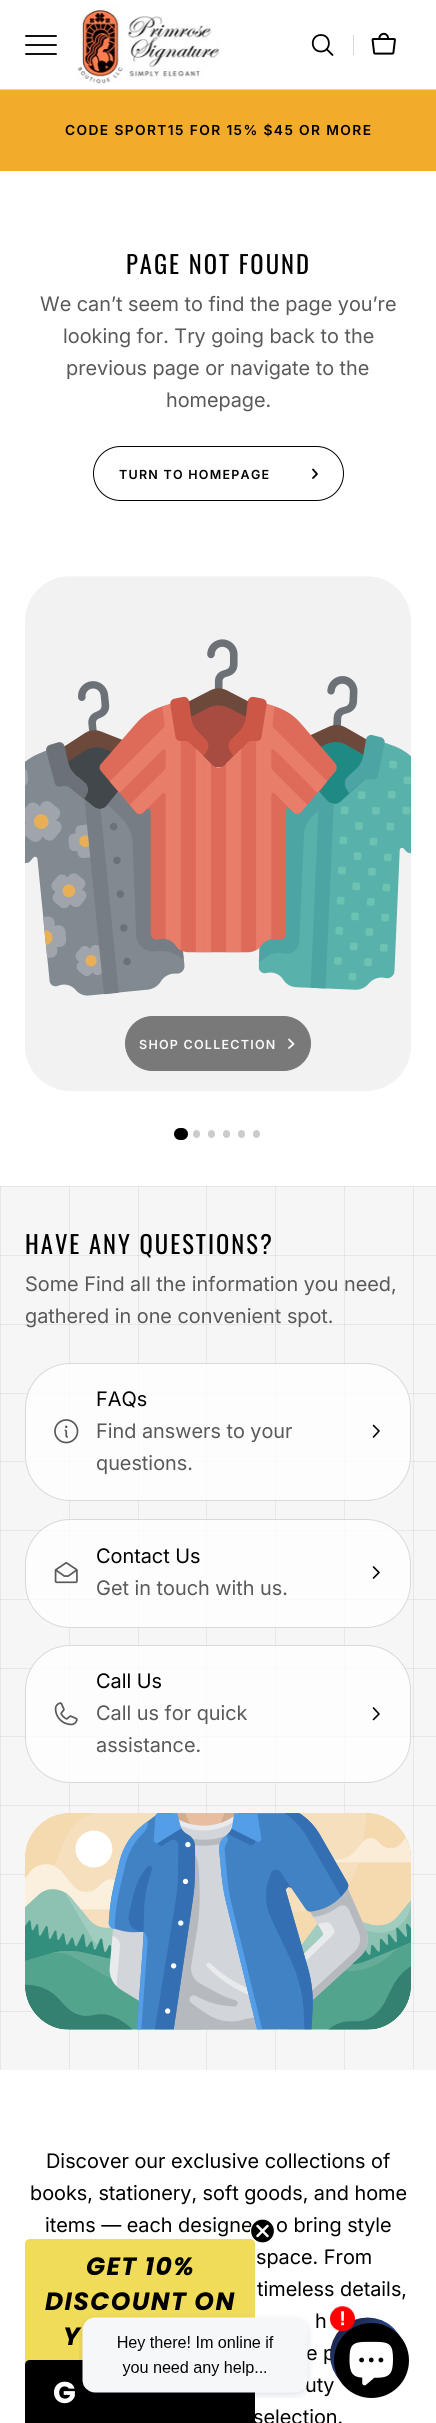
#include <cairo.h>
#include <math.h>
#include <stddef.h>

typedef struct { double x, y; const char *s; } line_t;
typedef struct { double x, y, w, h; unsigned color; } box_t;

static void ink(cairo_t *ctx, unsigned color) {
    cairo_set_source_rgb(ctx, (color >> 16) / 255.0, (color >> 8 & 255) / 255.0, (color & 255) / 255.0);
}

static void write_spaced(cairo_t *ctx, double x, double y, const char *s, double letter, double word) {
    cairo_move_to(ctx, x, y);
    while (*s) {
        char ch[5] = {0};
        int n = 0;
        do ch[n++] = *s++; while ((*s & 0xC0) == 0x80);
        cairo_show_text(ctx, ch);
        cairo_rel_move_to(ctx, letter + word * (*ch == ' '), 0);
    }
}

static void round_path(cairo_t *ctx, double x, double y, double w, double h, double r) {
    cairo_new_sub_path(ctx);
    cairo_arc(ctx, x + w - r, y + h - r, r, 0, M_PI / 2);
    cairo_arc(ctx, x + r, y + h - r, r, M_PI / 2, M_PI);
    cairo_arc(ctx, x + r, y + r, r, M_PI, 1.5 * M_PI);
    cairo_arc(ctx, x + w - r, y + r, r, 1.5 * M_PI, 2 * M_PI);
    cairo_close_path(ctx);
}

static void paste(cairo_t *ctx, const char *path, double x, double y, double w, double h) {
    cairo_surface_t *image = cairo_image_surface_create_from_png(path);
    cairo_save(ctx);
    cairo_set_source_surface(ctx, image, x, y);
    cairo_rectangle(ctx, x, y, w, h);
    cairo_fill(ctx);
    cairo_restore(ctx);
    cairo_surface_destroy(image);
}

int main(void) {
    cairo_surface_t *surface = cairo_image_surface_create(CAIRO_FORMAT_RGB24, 436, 2423);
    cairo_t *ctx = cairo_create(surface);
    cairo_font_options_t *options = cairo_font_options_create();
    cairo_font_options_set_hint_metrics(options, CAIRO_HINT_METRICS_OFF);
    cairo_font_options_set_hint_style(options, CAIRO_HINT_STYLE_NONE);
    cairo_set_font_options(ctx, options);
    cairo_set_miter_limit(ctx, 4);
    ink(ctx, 0xFFFFFF);
    cairo_paint(ctx);
    cairo_new_path(ctx);
    cairo_move_to(ctx, 26, 36);
    cairo_line_to(ctx, 56, 36);
    cairo_move_to(ctx, 26, 45);
    cairo_line_to(ctx, 56, 45);
    cairo_move_to(ctx, 26, 54);
    cairo_line_to(ctx, 56, 54);
    ink(ctx, 0x000000);
    cairo_set_line_width(ctx, 1.9);
    cairo_set_line_cap(ctx, CAIRO_LINE_CAP_ROUND);
    cairo_stroke(ctx);
    paste(ctx, "media/1.png", 77, 5, 143, 80);
    cairo_new_path(ctx);
    cairo_move_to(ctx, 321, 51.5);
    cairo_curve_to(ctx, 331.5, 51.5, 331.5, 35, 321, 35);
    cairo_curve_to(ctx, 310, 35, 310, 51.5, 321, 51.5);
    cairo_close_path(ctx);
    cairo_move_to(ctx, 326.5, 49);
    cairo_line_to(ctx, 332.5, 55);
    cairo_set_line_width(ctx, 1.8);
    cairo_set_line_join(ctx, CAIRO_LINE_JOIN_ROUND);
    cairo_stroke(ctx);
    ink(ctx, 0xD9D9D9);
    cairo_rectangle(ctx, 353, 35, 1, 20);
    cairo_fill(ctx);
    paste(ctx, "media/2.png", 371, 32, 25, 23);
    cairo_rectangle(ctx, 0, 89, 436, 1);
    cairo_fill(ctx);
    ink(ctx, 0xF3AB2C);
    cairo_rectangle(ctx, 0, 90, 436, 81);
    cairo_fill(ctx);
    cairo_select_font_face(ctx, "Inter SemiBold", CAIRO_FONT_SLANT_NORMAL, CAIRO_FONT_WEIGHT_NORMAL);
    cairo_set_font_size(ctx, 13.75);
    ink(ctx, 0x000000);
    write_spaced(ctx, 65, 135, "CODE SPORT15 FOR 15% $45 OR MORE", 1.4, 0);
    cairo_select_font_face(ctx, "Oswald", CAIRO_FONT_SLANT_NORMAL, CAIRO_FONT_WEIGHT_NORMAL);
    cairo_set_font_size(ctx, 24.6);
    write_spaced(ctx, 126, 274, "PAGE NOT FOUND", 2, 0);
    cairo_select_font_face(ctx, "Inter", CAIRO_FONT_SLANT_NORMAL, CAIRO_FONT_WEIGHT_NORMAL);
    cairo_set_font_size(ctx, 20);
    ink(ctx, 0x595959);
    {
        static const line_t items[] = {
            {40, 311, "We can’t seem to find the page you’re"},
            {63, 343, "looking for. Try going back to the"},
            {66, 375, "previous page or navigate to the"},
            {166, 407, "homepage."},
        };
        for (size_t i = 0; i < sizeof items / sizeof *items; i++) {
            cairo_move_to(ctx, items[i].x, items[i].y);
            cairo_show_text(ctx, items[i].s);
        }
    }
    round_path(ctx, 93.5, 446.5, 250, 54, 27);
    ink(ctx, 0x000000);
    cairo_set_line_width(ctx, 1);
    cairo_set_line_cap(ctx, CAIRO_LINE_CAP_BUTT);
    cairo_set_line_join(ctx, CAIRO_LINE_JOIN_MITER);
    cairo_stroke(ctx);
    cairo_select_font_face(ctx, "Inter SemiBold", CAIRO_FONT_SLANT_NORMAL, CAIRO_FONT_WEIGHT_NORMAL);
    cairo_set_font_size(ctx, 12.5);
    write_spaced(ctx, 119, 479, "TURN TO HOMEPAGE", 1.25, 0);
    cairo_new_path(ctx);
    cairo_move_to(ctx, 313, 469.5);
    cairo_line_to(ctx, 317, 474);
    cairo_line_to(ctx, 313, 478);
    cairo_set_line_width(ctx, 1.8);
    cairo_set_line_cap(ctx, CAIRO_LINE_CAP_ROUND);
    cairo_set_line_join(ctx, CAIRO_LINE_JOIN_ROUND);
    cairo_stroke(ctx);
    paste(ctx, "media/3.png", 25, 576, 386, 515);
    ink(ctx, 0x797979);
    round_path(ctx, 125.5, 1016.5, 185, 54, 27);
    cairo_fill_preserve(ctx);
    cairo_set_line_width(ctx, 1);
    cairo_set_line_cap(ctx, CAIRO_LINE_CAP_BUTT);
    cairo_set_line_join(ctx, CAIRO_LINE_JOIN_MITER);
    cairo_stroke(ctx);
    ink(ctx, 0xF9F9F9);
    write_spaced(ctx, 139, 1049, "SHOP COLLECTION", 1.25, 0);
    cairo_new_path(ctx);
    cairo_move_to(ctx, 289, 1039.5);
    cairo_line_to(ctx, 293.5, 1044);
    cairo_line_to(ctx, 289, 1048);
    cairo_set_line_width(ctx, 1.8);
    cairo_set_line_cap(ctx, CAIRO_LINE_CAP_ROUND);
    cairo_set_line_join(ctx, CAIRO_LINE_JOIN_ROUND);
    cairo_stroke(ctx);
    ink(ctx, 0x000000);
    round_path(ctx, 174, 1128, 14, 12, 6);
    cairo_fill(ctx);
    ink(ctx, 0xCCCCCC);
    round_path(ctx, 193, 1130, 7, 8, 3.5);
    cairo_fill(ctx);
    round_path(ctx, 208, 1130, 7, 8, 3.5);
    cairo_fill(ctx);
    round_path(ctx, 223, 1130, 7, 8, 3.5);
    cairo_fill(ctx);
    round_path(ctx, 238, 1130, 7, 8, 3.5);
    cairo_fill(ctx);
    round_path(ctx, 253, 1130, 7, 8, 3.5);
    cairo_fill(ctx);
    {
        static const box_t items[] = {
            {1, 1187, 435, 883, 0xF6F6F6},
            {0, 2011, 436, 1, 0xE7E7E7},
            {0, 1943, 436, 1, 0xE7E7E7},
            {0, 1874, 436, 1, 0xE7E7E7},
            {0, 1805, 436, 1, 0xE7E7E7},
            {0, 1736, 436, 1, 0xE7E7E7},
            {0, 1668, 436, 1, 0xE7E7E7},
            {0, 1599, 436, 1, 0xE7E7E7},
            {0, 1530, 436, 1, 0xE7E7E7},
            {0, 1461, 436, 1, 0xE7E7E7},
            {0, 1393, 436, 1, 0xE7E7E7},
            {0, 1324, 436, 1, 0xE7E7E7},
            {0, 1255, 436, 1, 0xE7E7E7},
            {0, 1186, 436, 1, 0xE7E7E7},
            {0, 1186, 1, 884, 0xE7E7E7},
            {0, 2011, 1, 1, 0xD9D9D9},
            {0, 1943, 1, 1, 0xD9D9D9},
            {0, 1874, 1, 1, 0xD9D9D9},
            {0, 1805, 1, 1, 0xD9D9D9},
            {0, 1736, 1, 1, 0xD9D9D9},
            {0, 1668, 1, 1, 0xD9D9D9},
            {0, 1599, 1, 1, 0xD9D9D9},
            {0, 1530, 1, 1, 0xD9D9D9},
            {0, 1461, 1, 1, 0xD9D9D9},
            {0, 1393, 1, 1, 0xD9D9D9},
            {0, 1324, 1, 1, 0xD9D9D9},
            {0, 1255, 1, 1, 0xD9D9D9},
            {0, 1186, 1, 1, 0xD9D9D9},
            {69, 1186, 1, 884, 0xE7E7E7},
            {69, 1805, 1, 1, 0xD9D9D9},
            {69, 1736, 1, 1, 0xD9D9D9},
            {69, 1668, 1, 1, 0xD9D9D9},
            {69, 1599, 1, 1, 0xD9D9D9},
            {69, 1530, 1, 1, 0xD9D9D9},
            {69, 1461, 1, 1, 0xD9D9D9},
            {69, 1393, 1, 1, 0xD9D9D9},
            {69, 1324, 1, 1, 0xD9D9D9},
            {69, 1255, 1, 1, 0xD9D9D9},
            {69, 1186, 1, 1, 0xD9D9D9},
            {138, 1186, 1, 884, 0xE7E7E7},
            {138, 1805, 1, 1, 0xD9D9D9},
            {138, 1736, 1, 1, 0xD9D9D9},
            {138, 1668, 1, 1, 0xD9D9D9},
            {138, 1599, 1, 1, 0xD9D9D9},
            {138, 1530, 1, 1, 0xD9D9D9},
            {138, 1461, 1, 1, 0xD9D9D9},
            {138, 1393, 1, 1, 0xD9D9D9},
            {138, 1324, 1, 1, 0xD9D9D9},
            {138, 1255, 1, 1, 0xD9D9D9},
            {138, 1186, 1, 1, 0xD9D9D9},
            {206, 1186, 1, 884, 0xE7E7E7},
            {206, 1805, 1, 1, 0xD9D9D9},
            {206, 1736, 1, 1, 0xD9D9D9},
            {206, 1668, 1, 1, 0xD9D9D9},
            {206, 1599, 1, 1, 0xD9D9D9},
            {206, 1530, 1, 1, 0xD9D9D9},
            {206, 1461, 1, 1, 0xD9D9D9},
            {206, 1393, 1, 1, 0xD9D9D9},
            {206, 1324, 1, 1, 0xD9D9D9},
            {206, 1255, 1, 1, 0xD9D9D9},
            {206, 1186, 1, 1, 0xD9D9D9},
            {275, 1186, 1, 884, 0xE7E7E7},
            {275, 1805, 1, 1, 0xD9D9D9},
            {275, 1736, 1, 1, 0xD9D9D9},
            {275, 1668, 1, 1, 0xD9D9D9},
            {275, 1599, 1, 1, 0xD9D9D9},
            {275, 1530, 1, 1, 0xD9D9D9},
            {275, 1461, 1, 1, 0xD9D9D9},
            {275, 1393, 1, 1, 0xD9D9D9},
            {275, 1324, 1, 1, 0xD9D9D9},
            {275, 1255, 1, 1, 0xD9D9D9},
            {275, 1186, 1, 1, 0xD9D9D9},
            {344, 1186, 1, 884, 0xE7E7E7},
            {344, 1805, 1, 1, 0xD9D9D9},
            {344, 1736, 1, 1, 0xD9D9D9},
            {344, 1668, 1, 1, 0xD9D9D9},
            {344, 1599, 1, 1, 0xD9D9D9},
            {344, 1530, 1, 1, 0xD9D9D9},
            {344, 1461, 1, 1, 0xD9D9D9},
            {344, 1393, 1, 1, 0xD9D9D9},
            {344, 1324, 1, 1, 0xD9D9D9},
            {344, 1255, 1, 1, 0xD9D9D9},
            {344, 1186, 1, 1, 0xD9D9D9},
            {413, 1186, 1, 884, 0xE7E7E7},
            {413, 2011, 1, 1, 0xD9D9D9},
            {413, 1943, 1, 1, 0xD9D9D9},
            {413, 1874, 1, 1, 0xD9D9D9},
            {413, 1805, 1, 1, 0xD9D9D9},
            {413, 1736, 1, 1, 0xD9D9D9},
            {413, 1668, 1, 1, 0xD9D9D9},
            {413, 1599, 1, 1, 0xD9D9D9},
            {413, 1530, 1, 1, 0xD9D9D9},
            {413, 1461, 1, 1, 0xD9D9D9},
            {413, 1393, 1, 1, 0xD9D9D9},
            {413, 1324, 1, 1, 0xD9D9D9},
            {413, 1255, 1, 1, 0xD9D9D9},
            {413, 1186, 1, 1, 0xD9D9D9},
        };
        for (size_t i = 0; i < sizeof items / sizeof *items; i++) {
            ink(ctx, items[i].color);
            cairo_rectangle(ctx, items[i].x, items[i].y, items[i].w, items[i].h);
            cairo_fill(ctx);
        }
    }
    cairo_select_font_face(ctx, "Oswald", CAIRO_FONT_SLANT_NORMAL, CAIRO_FONT_WEIGHT_NORMAL);
    cairo_set_font_size(ctx, 24.6);
    ink(ctx, 0x000000);
    write_spaced(ctx, 25, 1254, "HAVE ANY QUESTIONS?", 2, 0);
    cairo_select_font_face(ctx, "Inter", CAIRO_FONT_SLANT_NORMAL, CAIRO_FONT_WEIGHT_NORMAL);
    cairo_set_font_size(ctx, 20);
    ink(ctx, 0x595959);
    cairo_move_to(ctx, 25, 1291);
    cairo_show_text(ctx, "Some Find all the information you need,");
    cairo_move_to(ctx, 25, 1323);
    cairo_show_text(ctx, "gathered in one convenient spot.");
    cairo_set_source_rgba(ctx, 1, 1, 1, 0.8);
    round_path(ctx, 25.5, 1363.5, 385, 137, 44.5);
    cairo_fill_preserve(ctx);
    ink(ctx, 0xD9D9D9);
    cairo_set_line_width(ctx, 1);
    cairo_set_line_cap(ctx, CAIRO_LINE_CAP_BUTT);
    cairo_set_line_join(ctx, CAIRO_LINE_JOIN_MITER);
    cairo_stroke(ctx);
    paste(ctx, "media/4.png", 54, 1419, 25, 25);
    ink(ctx, 0x000000);
    cairo_move_to(ctx, 96, 1406);
    cairo_show_text(ctx, "FAQs");
    ink(ctx, 0x595959);
    cairo_move_to(ctx, 96, 1438);
    cairo_show_text(ctx, "Find answers to your");
    cairo_move_to(ctx, 96, 1470);
    cairo_show_text(ctx, "questions.");
    cairo_new_path(ctx);
    cairo_move_to(ctx, 373.5, 1425.5);
    cairo_line_to(ctx, 379, 1431);
    cairo_line_to(ctx, 373.5, 1437);
    ink(ctx, 0x000000);
    cairo_set_line_width(ctx, 1.6);
    cairo_set_line_cap(ctx, CAIRO_LINE_CAP_ROUND);
    cairo_set_line_join(ctx, CAIRO_LINE_JOIN_ROUND);
    cairo_stroke(ctx);
    cairo_set_source_rgba(ctx, 1, 1, 1, 0.8);
    round_path(ctx, 25.5, 1519.5, 385, 108, 44.5);
    cairo_fill_preserve(ctx);
    ink(ctx, 0xD9D9D9);
    cairo_set_line_width(ctx, 1);
    cairo_set_line_cap(ctx, CAIRO_LINE_CAP_BUTT);
    cairo_set_line_join(ctx, CAIRO_LINE_JOIN_MITER);
    cairo_stroke(ctx);
    paste(ctx, "media/5.png", 54, 1561, 24, 23);
    ink(ctx, 0x000000);
    cairo_move_to(ctx, 96, 1563);
    cairo_show_text(ctx, "Contact Us");
    ink(ctx, 0x595959);
    cairo_move_to(ctx, 96, 1595);
    cairo_show_text(ctx, "Get in touch with us.");
    cairo_new_path(ctx);
    cairo_move_to(ctx, 373.5, 1567);
    cairo_line_to(ctx, 379, 1572.5);
    cairo_line_to(ctx, 373.5, 1578);
    ink(ctx, 0x000000);
    cairo_set_line_width(ctx, 1.6);
    cairo_set_line_cap(ctx, CAIRO_LINE_CAP_ROUND);
    cairo_set_line_join(ctx, CAIRO_LINE_JOIN_ROUND);
    cairo_stroke(ctx);
    cairo_set_source_rgba(ctx, 1, 1, 1, 0.8);
    round_path(ctx, 25.5, 1645.5, 385, 137, 44.5);
    cairo_fill_preserve(ctx);
    ink(ctx, 0xD9D9D9);
    cairo_set_line_width(ctx, 1);
    cairo_set_line_cap(ctx, CAIRO_LINE_CAP_BUTT);
    cairo_set_line_join(ctx, CAIRO_LINE_JOIN_MITER);
    cairo_stroke(ctx);
    paste(ctx, "media/6.png", 54, 1702, 24, 24);
    ink(ctx, 0x000000);
    cairo_move_to(ctx, 96, 1688);
    cairo_show_text(ctx, "Call Us");
    ink(ctx, 0x595959);
    cairo_move_to(ctx, 96, 1720);
    cairo_show_text(ctx, "Call us for quick");
    cairo_move_to(ctx, 96, 1752);
    cairo_show_text(ctx, "assistance.");
    cairo_new_path(ctx);
    cairo_move_to(ctx, 373.5, 1708);
    cairo_line_to(ctx, 379, 1714);
    cairo_line_to(ctx, 373.5, 1719.5);
    ink(ctx, 0x000000);
    cairo_set_line_width(ctx, 1.6);
    cairo_set_line_cap(ctx, CAIRO_LINE_CAP_ROUND);
    cairo_set_line_join(ctx, CAIRO_LINE_JOIN_ROUND);
    cairo_stroke(ctx);
    paste(ctx, "media/7.png", 25, 1813, 386, 217);
    {
        static const line_t items[] = {
            {46, 2168, "Discover our exclusive collections of"},
            {30, 2200, "books, stationery, soft goods, and home"},
            {45, 2232, "items — each designe"},
            {276, 2232, "o bring style"},
            {256, 2264, "space. From"},
            {257, 2296, "timeless details,"},
            {315, 2328, "h"},
            {306, 2360, "e p"},
            {305, 2392, "uty"},
            {253, 2424, "selection."},
        };
        for (size_t i = 0; i < sizeof items / sizeof *items; i++) {
            cairo_move_to(ctx, items[i].x, items[i].y);
            cairo_show_text(ctx, items[i].s);
        }
    }
    ink(ctx, 0xF0DC59);
    cairo_new_path(ctx);
    cairo_move_to(ctx, 30, 2239);
    cairo_line_to(ctx, 250, 2239);
    cairo_curve_to(ctx, 253, 2239, 255, 2241, 255, 2244);
    cairo_line_to(ctx, 255, 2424);
    cairo_line_to(ctx, 25, 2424);
    cairo_line_to(ctx, 25, 2244);
    cairo_curve_to(ctx, 25, 2241, 27, 2239, 30, 2239);
    cairo_close_path(ctx);
    cairo_fill(ctx);
    ink(ctx, 0x000000);
    cairo_arc(ctx, 262.5, 2231, 12, 0, 2 * M_PI);
    cairo_fill_preserve(ctx);
    ink(ctx, 0xFFFFFF);
    cairo_set_line_width(ctx, 1.2);
    cairo_set_line_cap(ctx, CAIRO_LINE_CAP_BUTT);
    cairo_set_line_join(ctx, CAIRO_LINE_JOIN_MITER);
    cairo_stroke(ctx);
    cairo_new_path(ctx);
    cairo_move_to(ctx, 257.5, 2226);
    cairo_line_to(ctx, 267.5, 2236);
    cairo_move_to(ctx, 257.5, 2236);
    cairo_line_to(ctx, 267.5, 2226);
    cairo_close_path(ctx);
    cairo_set_line_width(ctx, 2.5);
    cairo_set_line_cap(ctx, CAIRO_LINE_CAP_ROUND);
    cairo_set_line_join(ctx, CAIRO_LINE_JOIN_ROUND);
    cairo_stroke(ctx);
    cairo_select_font_face(ctx, "Poppins", CAIRO_FONT_SLANT_ITALIC, CAIRO_FONT_WEIGHT_BOLD);
    cairo_set_font_size(ctx, 25);
    ink(ctx, 0x000000);
    {
        static const line_t items[] = {
            {86, 2275, "GET 10%"},
            {45, 2310, "DISCOUNT ON"},
            {63, 2345, "Y"},
        };
        for (size_t i = 0; i < sizeof items / sizeof *items; i++) {
            write_spaced(ctx, items[i].x, items[i].y, items[i].s, 1.4, 0);
        }
    }
    cairo_new_path(ctx);
    cairo_move_to(ctx, 30, 2360);
    cairo_line_to(ctx, 250, 2360);
    cairo_curve_to(ctx, 253, 2360, 255, 2362, 255, 2365);
    cairo_line_to(ctx, 255, 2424);
    cairo_line_to(ctx, 25, 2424);
    cairo_line_to(ctx, 25, 2365);
    cairo_curve_to(ctx, 25, 2362, 27, 2360, 30, 2360);
    cairo_close_path(ctx);
    cairo_fill(ctx);
    paste(ctx, "media/8.png", 79, 2306, 324, 92);
    cairo_select_font_face(ctx, "Poppins", CAIRO_FONT_SLANT_NORMAL, CAIRO_FONT_WEIGHT_BOLD);
    cairo_set_font_size(ctx, 30);
    ink(ctx, 0xFFFFFF);
    cairo_move_to(ctx, 53, 2403);
    cairo_show_text(ctx, "G");
    ink(ctx, 0x000000);
    cairo_new_path(ctx);
    cairo_arc(ctx, 371.5, 2360.5, 37.5, 0, 2 * M_PI);
    cairo_fill(ctx);
    paste(ctx, "media/9.png", 349, 2341, 44, 45);
    cairo_surface_write_to_png(surface, "image.png");
    cairo_font_options_destroy(options);
    cairo_destroy(ctx);
    cairo_surface_destroy(surface);
    return 0;
}
